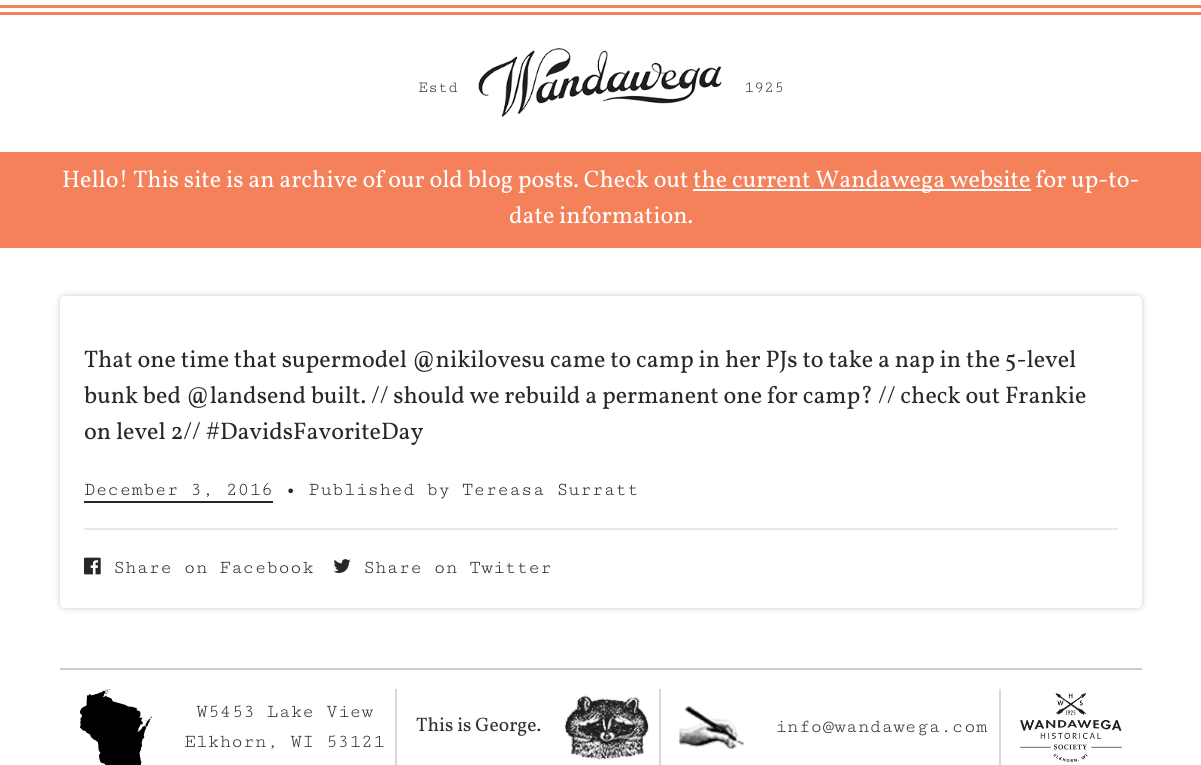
#include <cairo.h>
#include <math.h>
#include <stddef.h>

typedef struct { double x, y; const char *s; } line_t;

static void ink(cairo_t *ctx, unsigned color) {
    cairo_set_source_rgb(ctx, (color >> 16) / 255.0, (color >> 8 & 255) / 255.0, (color & 255) / 255.0);
}

static void round_path(cairo_t *ctx, double x, double y, double w, double h, double r) {
    cairo_new_sub_path(ctx);
    cairo_arc(ctx, x + w - r, y + h - r, r, 0, M_PI / 2);
    cairo_arc(ctx, x + r, y + h - r, r, M_PI / 2, M_PI);
    cairo_arc(ctx, x + r, y + r, r, M_PI, 1.5 * M_PI);
    cairo_arc(ctx, x + w - r, y + r, r, 1.5 * M_PI, 2 * M_PI);
    cairo_close_path(ctx);
}

static void blur_box(cairo_t *ctx, double x, double y, double w, double h, double r, double blur, double alpha) {
    cairo_push_group_with_content(ctx, CAIRO_CONTENT_ALPHA);
    cairo_set_operator(ctx, CAIRO_OPERATOR_SOURCE);
    for (int i = 15; i >= -15 && fmin(w, h) + blur * i / 3 > 0; i -= 2) {
        double e = blur * i / 6;
        cairo_set_source_rgba(ctx, 0, 0, 0, alpha * erfc((i - 1) / 8.5) / 2);
        round_path(ctx, x - e, y - e, w + 2 * e, h + 2 * e, fmax(0, fmin(r + e + blur * .6, fmin(w, h) / 2 + e)));
        cairo_fill(ctx);
    }
    cairo_pattern_t *soft = cairo_pop_group(ctx);
    cairo_mask(ctx, soft);
    cairo_pattern_destroy(soft);
}

static void paste(cairo_t *ctx, const char *path, double x, double y, double w, double h) {
    cairo_surface_t *image = cairo_image_surface_create_from_png(path);
    cairo_save(ctx);
    cairo_set_source_surface(ctx, image, x, y);
    cairo_rectangle(ctx, x, y, w, h);
    cairo_fill(ctx);
    cairo_restore(ctx);
    cairo_surface_destroy(image);
}

int main(void) {
    cairo_surface_t *surface = cairo_image_surface_create(CAIRO_FORMAT_RGB24, 1201, 765);
    cairo_t *ctx = cairo_create(surface);
    cairo_font_options_t *options = cairo_font_options_create();
    cairo_font_options_set_hint_metrics(options, CAIRO_HINT_METRICS_OFF);
    cairo_font_options_set_hint_style(options, CAIRO_HINT_STYLE_NONE);
    cairo_set_font_options(ctx, options);
    cairo_set_miter_limit(ctx, 4);
    ink(ctx, 0xFFFFFF);
    cairo_paint(ctx);
    ink(ctx, 0xF48159);
    cairo_rectangle(ctx, 0, 5, 1201, 3);
    cairo_fill(ctx);
    cairo_rectangle(ctx, 0, 12, 1201, 3);
    cairo_fill(ctx);
    cairo_select_font_face(ctx, "Cutive Mono", CAIRO_FONT_SLANT_NORMAL, CAIRO_FONT_WEIGHT_NORMAL);
    cairo_set_font_size(ctx, 16.5);
    ink(ctx, 0x313131);
    cairo_move_to(ctx, 418, 92);
    cairo_show_text(ctx, "Estd");
    paste(ctx, "media/1.png", 478, 48, 244, 69);
    cairo_move_to(ctx, 744, 92);
    cairo_show_text(ctx, "1925");
    ink(ctx, 0xF48159);
    cairo_rectangle(ctx, 0, 152, 1201, 96);
    cairo_fill(ctx);
    cairo_select_font_face(ctx, "Vollkorn", CAIRO_FONT_SLANT_NORMAL, CAIRO_FONT_WEIGHT_NORMAL);
    cairo_set_font_size(ctx, 24);
    ink(ctx, 0xFFFFFF);
    cairo_move_to(ctx, 62, 187);
    cairo_show_text(ctx, "Hello! This site is an archive of our old blog posts. Check out");
    cairo_rectangle(ctx, 693, 189, 338, 2);
    cairo_fill(ctx);
    cairo_move_to(ctx, 693, 187);
    cairo_show_text(ctx, "the current Wandawega website for up-to-");
    cairo_move_to(ctx, 509, 223);
    cairo_show_text(ctx, "date information.");
    ink(ctx, 0x282828);
    blur_box(ctx, 60, 296, 1082, 312, 5, 3, 0.25);
    ink(ctx, 0xFFFFFF);
    round_path(ctx, 60, 296, 1082, 312, 5);
    cairo_fill(ctx);
    ink(ctx, 0x282828);
    {
        static const line_t items[] = {
            {84, 367, "That one time that supermodel @nikilovesu came to camp in her PJs to take a nap in the 5-level"},
            {84, 403, "bunk bed @landsend built. // should we rebuild a permanent one for camp? // check out Frankie"},
            {84, 439, "on level 2// #DavidsFavoriteDay"},
        };
        for (size_t i = 0; i < sizeof items / sizeof *items; i++) {
            cairo_move_to(ctx, items[i].x, items[i].y);
            cairo_show_text(ctx, items[i].s);
        }
    }
    cairo_select_font_face(ctx, "Cutive Mono", CAIRO_FONT_SLANT_NORMAL, CAIRO_FONT_WEIGHT_NORMAL);
    cairo_set_font_size(ctx, 19.5);
    cairo_move_to(ctx, 84, 495);
    cairo_show_text(ctx, "December 3, 2016 • Published by Tereasa Surratt");
    cairo_rectangle(ctx, 84, 501, 189, 2);
    cairo_fill(ctx);
    ink(ctx, 0xE8E8E8);
    cairo_rectangle(ctx, 84, 528, 1034, 2);
    cairo_fill(ctx);
    paste(ctx, "media/2.png", 84, 557, 17, 18);
    ink(ctx, 0x282828);
    cairo_move_to(ctx, 113, 573);
    cairo_show_text(ctx, "Share on Facebook");
    paste(ctx, "media/3.png", 333, 559, 18, 14);
    cairo_move_to(ctx, 363, 573);
    cairo_show_text(ctx, "Share on Twitter");
    ink(ctx, 0xCCCCCC);
    cairo_rectangle(ctx, 60, 668, 1082, 2);
    cairo_fill(ctx);
    ink(ctx, 0xD9D9D9);
    cairo_rectangle(ctx, 395, 689, 2, 76);
    cairo_fill(ctx);
    paste(ctx, "media/4.png", 80, 689, 73, 76);
    ink(ctx, 0x313131);
    cairo_move_to(ctx, 196, 717);
    cairo_show_text(ctx, "W5453 Lake View");
    cairo_move_to(ctx, 184, 747);
    cairo_show_text(ctx, "Elkhorn, WI 53121");
    ink(ctx, 0xD9D9D9);
    cairo_rectangle(ctx, 659, 689, 2, 76);
    cairo_fill(ctx);
    cairo_select_font_face(ctx, "Vollkorn", CAIRO_FONT_SLANT_NORMAL, CAIRO_FONT_WEIGHT_NORMAL);
    ink(ctx, 0x313131);
    cairo_move_to(ctx, 416, 731);
    cairo_show_text(ctx, "This is George.");
    paste(ctx, "media/5.png", 564, 695, 85, 65);
    ink(ctx, 0xD9D9D9);
    cairo_rectangle(ctx, 999, 689, 2, 76);
    cairo_fill(ctx);
    paste(ctx, "media/6.png", 679, 706, 65, 43);
    cairo_select_font_face(ctx, "Cutive Mono", CAIRO_FONT_SLANT_NORMAL, CAIRO_FONT_WEIGHT_NORMAL);
    ink(ctx, 0x313131);
    cairo_move_to(ctx, 775, 732);
    cairo_show_text(ctx, "info@wandawega.com");
    paste(ctx, "media/7.png", 1020, 693, 102, 69);
    cairo_surface_write_to_png(surface, "image.png");
    cairo_font_options_destroy(options);
    cairo_destroy(ctx);
    cairo_surface_destroy(surface);
    return 0;
}
